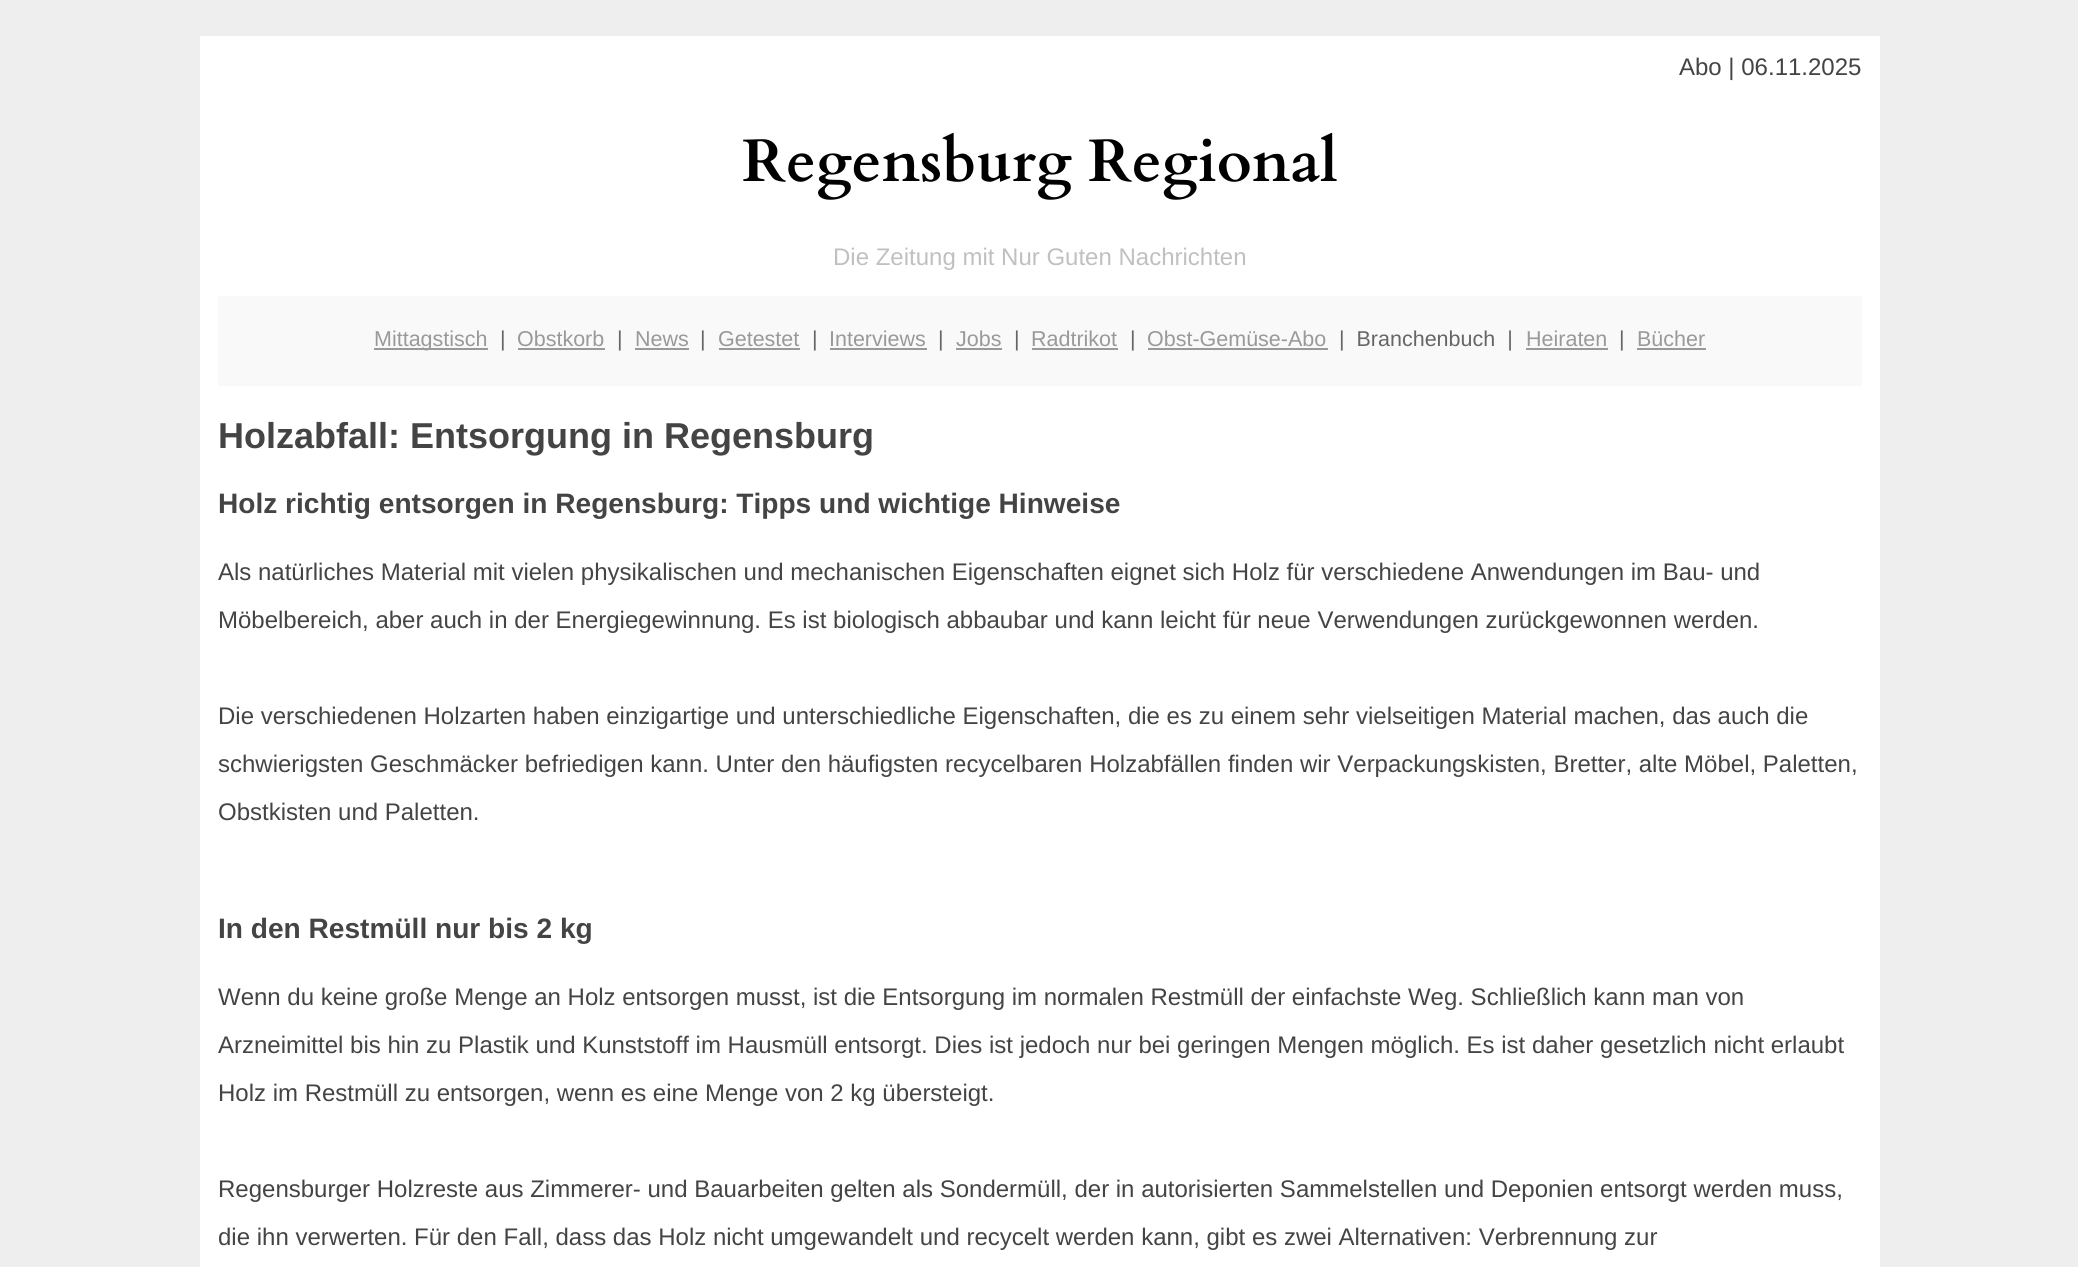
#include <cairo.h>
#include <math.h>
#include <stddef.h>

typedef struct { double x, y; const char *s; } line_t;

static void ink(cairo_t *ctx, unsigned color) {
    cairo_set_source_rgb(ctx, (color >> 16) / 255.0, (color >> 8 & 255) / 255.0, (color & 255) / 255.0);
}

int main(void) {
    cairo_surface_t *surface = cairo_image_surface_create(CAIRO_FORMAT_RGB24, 2078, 1267);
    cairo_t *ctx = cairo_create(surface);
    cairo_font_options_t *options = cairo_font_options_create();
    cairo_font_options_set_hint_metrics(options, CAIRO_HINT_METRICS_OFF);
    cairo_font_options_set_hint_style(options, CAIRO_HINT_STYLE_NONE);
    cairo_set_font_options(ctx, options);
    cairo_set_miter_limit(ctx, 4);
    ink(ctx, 0xEEEEEE);
    cairo_paint(ctx);
    ink(ctx, 0xFFFFFF);
    cairo_rectangle(ctx, 200, 36, 1680, 1231);
    cairo_fill(ctx);
    cairo_select_font_face(ctx, "Liberation Sans", CAIRO_FONT_SLANT_NORMAL, CAIRO_FONT_WEIGHT_NORMAL);
    cairo_set_font_size(ctx, 24);
    ink(ctx, 0x444444);
    cairo_move_to(ctx, 1679, 75);
    cairo_show_text(ctx, "Abo | 06.11.2025");
    cairo_select_font_face(ctx, "Cardo", CAIRO_FONT_SLANT_NORMAL, CAIRO_FONT_WEIGHT_BOLD);
    cairo_set_font_size(ctx, 60);
    ink(ctx, 0x000000);
    cairo_move_to(ctx, 742, 181);
    cairo_show_text(ctx, "Regensburg Regional");
    cairo_select_font_face(ctx, "Liberation Sans", CAIRO_FONT_SLANT_NORMAL, CAIRO_FONT_WEIGHT_NORMAL);
    cairo_set_font_size(ctx, 24);
    ink(ctx, 0xC0C0C0);
    cairo_move_to(ctx, 833, 265);
    cairo_show_text(ctx, "Die Zeitung mit Nur Guten Nachrichten");
    ink(ctx, 0xF9F9F9);
    cairo_rectangle(ctx, 218, 296, 1644, 90);
    cairo_fill(ctx);
    ink(ctx, 0x999999);
    cairo_rectangle(ctx, 374, 348, 114, 2);
    cairo_fill(ctx);
    cairo_set_font_size(ctx, 21.5);
    cairo_move_to(ctx, 374, 346);
    cairo_show_text(ctx, "Mittagstisch");
    ink(ctx, 0x666666);
    cairo_move_to(ctx, 500, 346);
    cairo_show_text(ctx, "|");
    ink(ctx, 0x999999);
    cairo_move_to(ctx, 517, 346);
    cairo_show_text(ctx, "Obstkorb");
    cairo_rectangle(ctx, 518, 348, 87, 2);
    cairo_fill(ctx);
    ink(ctx, 0x666666);
    cairo_move_to(ctx, 617, 346);
    cairo_show_text(ctx, "|");
    ink(ctx, 0x999999);
    cairo_move_to(ctx, 635, 346);
    cairo_show_text(ctx, "News");
    cairo_rectangle(ctx, 635, 348, 54, 2);
    cairo_fill(ctx);
    ink(ctx, 0x666666);
    cairo_move_to(ctx, 700, 346);
    cairo_show_text(ctx, "|");
    ink(ctx, 0x999999);
    cairo_move_to(ctx, 718, 346);
    cairo_show_text(ctx, "Getestet");
    cairo_rectangle(ctx, 719, 348, 81, 2);
    cairo_fill(ctx);
    ink(ctx, 0x666666);
    cairo_move_to(ctx, 812, 346);
    cairo_show_text(ctx, "|");
    ink(ctx, 0x999999);
    cairo_move_to(ctx, 829, 346);
    cairo_show_text(ctx, "Interviews");
    cairo_rectangle(ctx, 830, 348, 97, 2);
    cairo_fill(ctx);
    ink(ctx, 0x666666);
    cairo_move_to(ctx, 938, 346);
    cairo_show_text(ctx, "|");
    ink(ctx, 0x999999);
    cairo_move_to(ctx, 956, 346);
    cairo_show_text(ctx, "Jobs");
    cairo_rectangle(ctx, 956, 348, 46, 2);
    cairo_fill(ctx);
    ink(ctx, 0x666666);
    cairo_move_to(ctx, 1014, 346);
    cairo_show_text(ctx, "|");
    ink(ctx, 0x999999);
    cairo_move_to(ctx, 1031, 346);
    cairo_show_text(ctx, "Radtrikot");
    cairo_rectangle(ctx, 1032, 348, 86, 2);
    cairo_fill(ctx);
    ink(ctx, 0x666666);
    cairo_move_to(ctx, 1130, 346);
    cairo_show_text(ctx, "|");
    ink(ctx, 0x999999);
    cairo_move_to(ctx, 1147, 346);
    cairo_show_text(ctx, "Obst-Gemüse-Abo");
    cairo_rectangle(ctx, 1148, 348, 180, 2);
    cairo_fill(ctx);
    ink(ctx, 0x666666);
    cairo_move_to(ctx, 1339, 346);
    cairo_show_text(ctx, "|  Branchenbuch  |");
    ink(ctx, 0x999999);
    cairo_move_to(ctx, 1526, 346);
    cairo_show_text(ctx, "Heiraten");
    cairo_rectangle(ctx, 1526, 348, 82, 2);
    cairo_fill(ctx);
    ink(ctx, 0x666666);
    cairo_move_to(ctx, 1619, 346);
    cairo_show_text(ctx, "|");
    ink(ctx, 0x999999);
    cairo_move_to(ctx, 1637, 346);
    cairo_show_text(ctx, "Bücher");
    cairo_rectangle(ctx, 1637, 348, 69, 2);
    cairo_fill(ctx);
    cairo_select_font_face(ctx, "Liberation Sans", CAIRO_FONT_SLANT_NORMAL, CAIRO_FONT_WEIGHT_BOLD);
    cairo_set_font_size(ctx, 36);
    ink(ctx, 0x444444);
    cairo_move_to(ctx, 218, 448);
    cairo_show_text(ctx, "Holzabfall: Entsorgung in Regensburg");
    cairo_set_font_size(ctx, 28.1);
    cairo_move_to(ctx, 218, 513);
    cairo_show_text(ctx, "Holz richtig entsorgen in Regensburg: Tipps und wichtige Hinweise");
    cairo_select_font_face(ctx, "Liberation Sans", CAIRO_FONT_SLANT_NORMAL, CAIRO_FONT_WEIGHT_NORMAL);
    cairo_set_font_size(ctx, 24);
    {
        static const line_t items[] = {
            {218, 580, "Als natürliches Material mit vielen physikalischen und mechanischen Eigenschaften eignet sich Holz für verschiedene Anwendungen im Bau- und"},
            {218, 628, "Möbelbereich, aber auch in der Energiegewinnung. Es ist biologisch abbaubar und kann leicht für neue Verwendungen zurückgewonnen werden."},
            {218, 724, "Die verschiedenen Holzarten haben einzigartige und unterschiedliche Eigenschaften, die es zu einem sehr vielseitigen Material machen, das auch die"},
            {218, 772, "schwierigsten Geschmäcker befriedigen kann. Unter den häufigsten recycelbaren Holzabfällen finden wir Verpackungskisten, Bretter, alte Möbel, Paletten,"},
            {218, 820, "Obstkisten und Paletten."},
        };
        for (size_t i = 0; i < sizeof items / sizeof *items; i++) {
            cairo_move_to(ctx, items[i].x, items[i].y);
            cairo_show_text(ctx, items[i].s);
        }
    }
    cairo_select_font_face(ctx, "Liberation Sans", CAIRO_FONT_SLANT_NORMAL, CAIRO_FONT_WEIGHT_BOLD);
    cairo_set_font_size(ctx, 28.1);
    cairo_move_to(ctx, 218, 938);
    cairo_show_text(ctx, "In den Restmüll nur bis 2 kg");
    cairo_select_font_face(ctx, "Liberation Sans", CAIRO_FONT_SLANT_NORMAL, CAIRO_FONT_WEIGHT_NORMAL);
    cairo_set_font_size(ctx, 24);
    {
        static const line_t items[] = {
            {218, 1005, "Wenn du keine große Menge an Holz entsorgen musst, ist die Entsorgung im normalen Restmüll der einfachste Weg. Schließlich kann man von"},
            {218, 1053, "Arzneimittel bis hin zu Plastik und Kunststoff im Hausmüll entsorgt. Dies ist jedoch nur bei geringen Mengen möglich. Es ist daher gesetzlich nicht erlaubt"},
            {218, 1101, "Holz im Restmüll zu entsorgen, wenn es eine Menge von 2 kg übersteigt."},
            {218, 1197, "Regensburger Holzreste aus Zimmerer- und Bauarbeiten gelten als Sondermüll, der in autorisierten Sammelstellen und Deponien entsorgt werden muss,"},
            {218, 1245, "die ihn verwerten. Für den Fall, dass das Holz nicht umgewandelt und recycelt werden kann, gibt es zwei Alternativen: Verbrennung zur"},
        };
        for (size_t i = 0; i < sizeof items / sizeof *items; i++) {
            cairo_move_to(ctx, items[i].x, items[i].y);
            cairo_show_text(ctx, items[i].s);
        }
    }
    cairo_surface_write_to_png(surface, "image.png");
    cairo_font_options_destroy(options);
    cairo_destroy(ctx);
    cairo_surface_destroy(surface);
    return 0;
}
